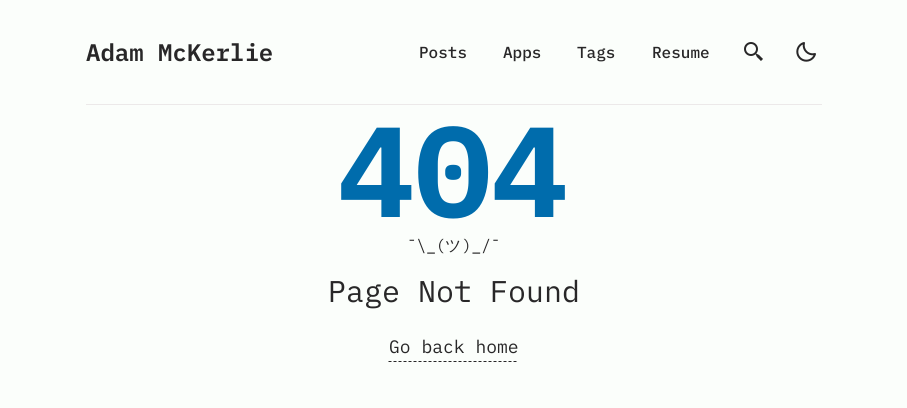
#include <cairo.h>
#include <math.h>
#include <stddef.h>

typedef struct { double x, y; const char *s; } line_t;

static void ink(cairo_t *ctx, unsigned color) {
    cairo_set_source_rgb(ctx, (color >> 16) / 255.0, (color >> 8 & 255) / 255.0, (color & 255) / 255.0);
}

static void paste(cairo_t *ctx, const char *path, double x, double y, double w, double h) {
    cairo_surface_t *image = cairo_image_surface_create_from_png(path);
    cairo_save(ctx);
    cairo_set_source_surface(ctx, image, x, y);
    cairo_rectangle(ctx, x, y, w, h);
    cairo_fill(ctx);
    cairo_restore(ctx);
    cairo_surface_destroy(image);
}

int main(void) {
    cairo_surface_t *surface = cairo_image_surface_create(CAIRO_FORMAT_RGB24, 907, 408);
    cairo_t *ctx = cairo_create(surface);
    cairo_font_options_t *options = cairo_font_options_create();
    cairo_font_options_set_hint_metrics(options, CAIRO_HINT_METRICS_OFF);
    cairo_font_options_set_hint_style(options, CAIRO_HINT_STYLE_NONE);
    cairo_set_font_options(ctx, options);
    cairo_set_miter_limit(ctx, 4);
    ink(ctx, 0xFBFEFB);
    cairo_paint(ctx);
    cairo_select_font_face(ctx, "IBM Plex Mono SemiBold", CAIRO_FONT_SLANT_NORMAL, CAIRO_FONT_WEIGHT_NORMAL);
    cairo_set_font_size(ctx, 24);
    ink(ctx, 0x282728);
    cairo_move_to(ctx, 86, 61);
    cairo_show_text(ctx, "Adam McKerlie");
    cairo_select_font_face(ctx, "IBM Plex Mono Medium", CAIRO_FONT_SLANT_NORMAL, CAIRO_FONT_WEIGHT_NORMAL);
    cairo_set_font_size(ctx, 16);
    {
        static const line_t items[] = {
            {419, 58, "Posts"},
            {503, 58, "Apps"},
            {577, 58, "Tags"},
            {652, 58, "Resume"},
        };
        for (size_t i = 0; i < sizeof items / sizeof *items; i++) {
            cairo_move_to(ctx, items[i].x, items[i].y);
            cairo_show_text(ctx, items[i].s);
        }
    }
    paste(ctx, "media/1.png", 744, 42, 19, 19);
    paste(ctx, "media/2.png", 796, 42, 20, 20);
    ink(ctx, 0xECE9E9);
    cairo_rectangle(ctx, 86, 104, 736, 1);
    cairo_fill(ctx);
    cairo_select_font_face(ctx, "IBM Plex Mono", CAIRO_FONT_SLANT_NORMAL, CAIRO_FONT_WEIGHT_BOLD);
    cairo_set_font_size(ctx, 128);
    ink(ctx, 0x006CAC);
    cairo_move_to(ctx, 338, 217);
    cairo_show_text(ctx, "404");
    cairo_select_font_face(ctx, "IBM Plex Mono", CAIRO_FONT_SLANT_NORMAL, CAIRO_FONT_WEIGHT_NORMAL);
    cairo_set_font_size(ctx, 16);
    ink(ctx, 0x282728);
    cairo_move_to(ctx, 407, 251);
    cairo_show_text(ctx, "¯\\_(");
    cairo_select_font_face(ctx, "WenQuanYi Zen Hei Medium", CAIRO_FONT_SLANT_NORMAL, CAIRO_FONT_WEIGHT_NORMAL);
    cairo_move_to(ctx, 445, 251);
    cairo_show_text(ctx, "ツ");
    cairo_select_font_face(ctx, "IBM Plex Mono", CAIRO_FONT_SLANT_NORMAL, CAIRO_FONT_WEIGHT_NORMAL);
    cairo_move_to(ctx, 462, 251);
    cairo_show_text(ctx, ")_/¯");
    cairo_set_font_size(ctx, 30);
    cairo_move_to(ctx, 328, 302);
    cairo_show_text(ctx, "Page Not Found");
    cairo_set_font_size(ctx, 18);
    cairo_move_to(ctx, 389, 353);
    cairo_show_text(ctx, "Go back home");
    cairo_new_path(ctx);
    cairo_move_to(ctx, 388.5, 361.5);
    cairo_line_to(ctx, 518.5, 361.5);
    cairo_set_line_width(ctx, 1);
    cairo_set_dash(ctx, (double[]){3, 2}, 2, 0);
    cairo_stroke(ctx);
    cairo_surface_write_to_png(surface, "image.png");
    cairo_font_options_destroy(options);
    cairo_destroy(ctx);
    cairo_surface_destroy(surface);
    return 0;
}
